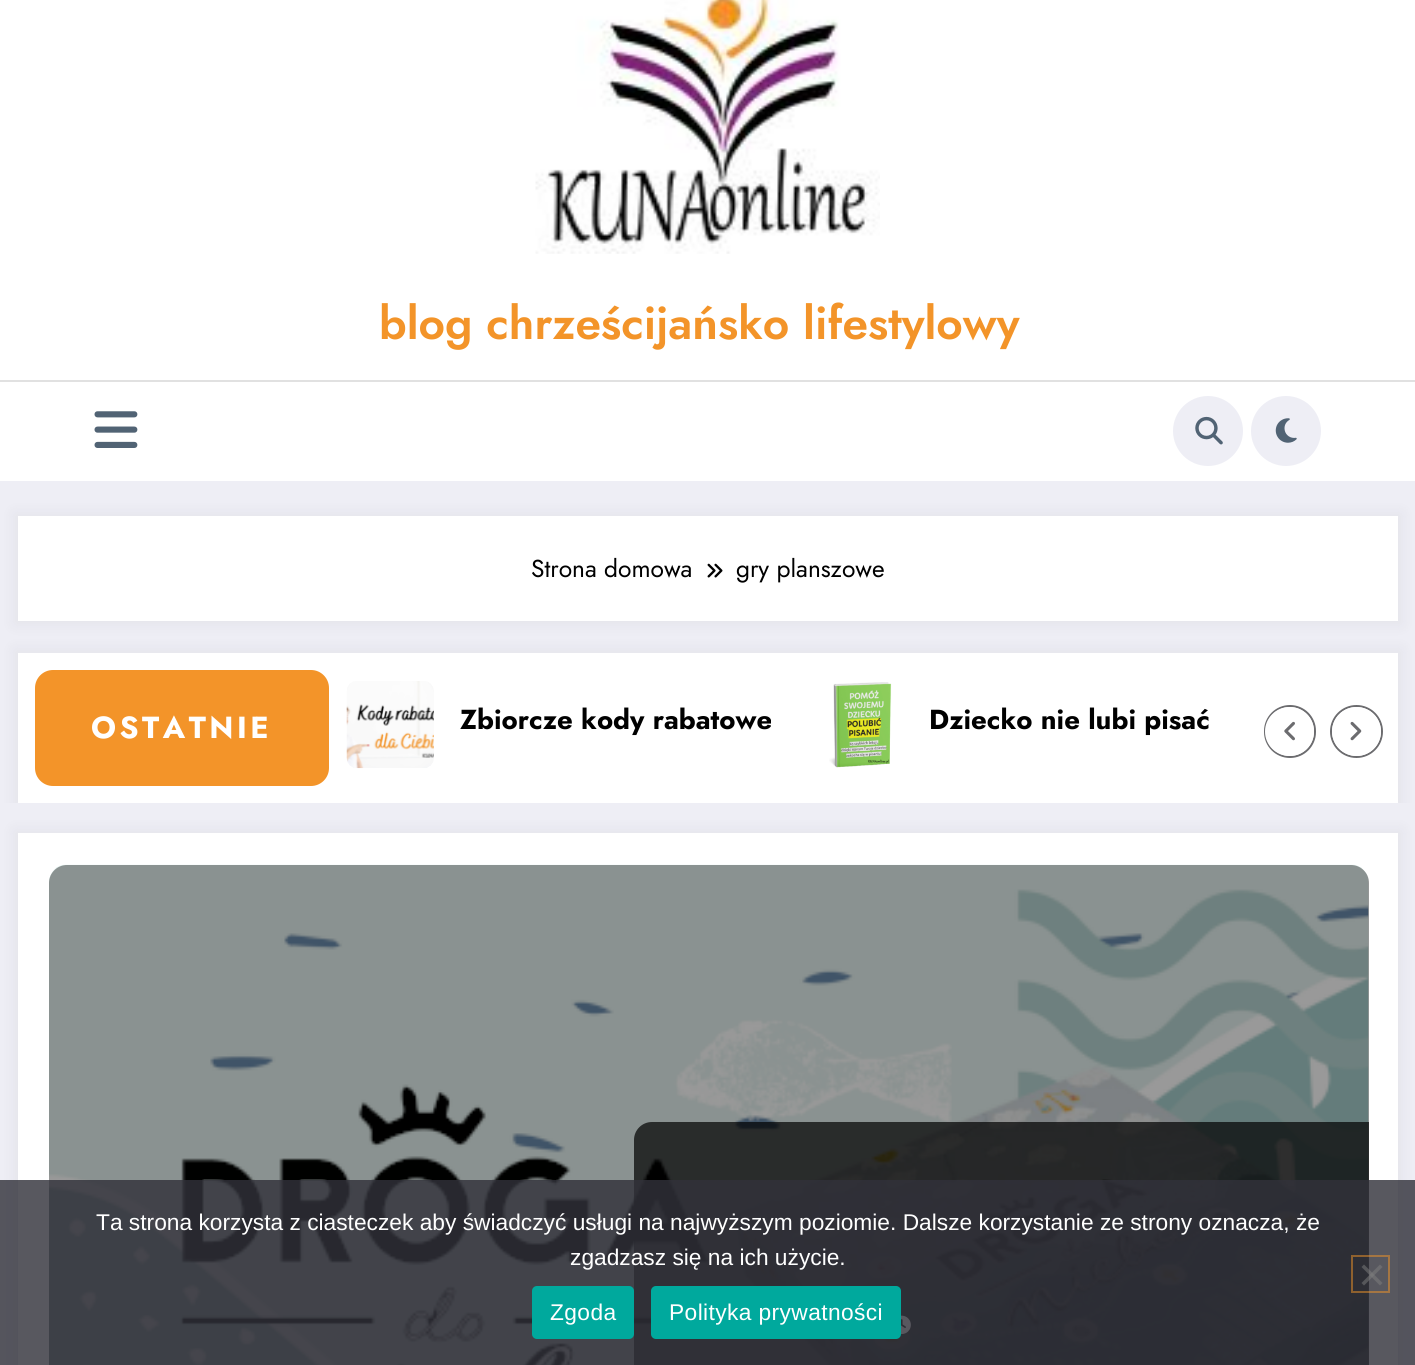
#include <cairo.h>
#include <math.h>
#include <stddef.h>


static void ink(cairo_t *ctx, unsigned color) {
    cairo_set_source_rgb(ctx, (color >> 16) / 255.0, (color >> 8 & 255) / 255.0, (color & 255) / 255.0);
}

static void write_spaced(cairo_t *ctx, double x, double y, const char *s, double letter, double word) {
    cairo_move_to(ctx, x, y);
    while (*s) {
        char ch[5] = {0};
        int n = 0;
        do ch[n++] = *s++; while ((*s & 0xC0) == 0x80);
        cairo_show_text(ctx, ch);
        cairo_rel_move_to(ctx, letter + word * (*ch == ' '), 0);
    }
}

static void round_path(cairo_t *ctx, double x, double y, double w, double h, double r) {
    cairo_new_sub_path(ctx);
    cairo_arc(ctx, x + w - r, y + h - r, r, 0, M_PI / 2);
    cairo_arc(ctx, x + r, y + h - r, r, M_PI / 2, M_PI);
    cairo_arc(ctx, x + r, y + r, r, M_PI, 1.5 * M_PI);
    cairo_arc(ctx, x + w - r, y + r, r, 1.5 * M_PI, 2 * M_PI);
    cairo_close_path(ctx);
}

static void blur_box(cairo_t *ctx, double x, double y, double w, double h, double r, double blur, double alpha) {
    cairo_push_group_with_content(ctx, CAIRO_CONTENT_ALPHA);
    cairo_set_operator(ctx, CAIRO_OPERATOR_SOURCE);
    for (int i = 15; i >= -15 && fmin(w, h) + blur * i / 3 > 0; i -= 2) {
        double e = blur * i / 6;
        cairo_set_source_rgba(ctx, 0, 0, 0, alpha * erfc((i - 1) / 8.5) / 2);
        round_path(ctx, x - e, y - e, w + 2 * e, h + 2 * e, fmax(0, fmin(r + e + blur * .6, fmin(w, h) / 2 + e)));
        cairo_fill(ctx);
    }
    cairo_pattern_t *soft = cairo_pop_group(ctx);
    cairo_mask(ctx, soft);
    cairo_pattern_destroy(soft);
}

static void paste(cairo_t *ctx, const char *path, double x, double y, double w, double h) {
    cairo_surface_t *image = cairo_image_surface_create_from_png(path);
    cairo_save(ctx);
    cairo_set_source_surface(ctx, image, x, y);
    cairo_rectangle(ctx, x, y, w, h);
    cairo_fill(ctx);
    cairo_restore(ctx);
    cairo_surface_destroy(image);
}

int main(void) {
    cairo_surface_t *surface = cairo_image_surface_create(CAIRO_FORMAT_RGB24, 1415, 1365);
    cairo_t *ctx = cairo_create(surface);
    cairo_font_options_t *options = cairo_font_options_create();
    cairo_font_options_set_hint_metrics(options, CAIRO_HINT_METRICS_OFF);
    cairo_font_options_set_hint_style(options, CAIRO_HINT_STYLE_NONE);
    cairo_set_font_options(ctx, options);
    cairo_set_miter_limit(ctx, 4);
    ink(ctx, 0xEEEEF5);
    cairo_paint(ctx);
    ink(ctx, 0xFFFFFF);
    cairo_rectangle(ctx, 0, 0, 1415, 481);
    cairo_fill(ctx);
    paste(ctx, "media/1.png", 535, 0, 345, 254);
    cairo_select_font_face(ctx, "Jost SemiBold", CAIRO_FONT_SLANT_NORMAL, CAIRO_FONT_WEIGHT_NORMAL);
    cairo_set_font_size(ctx, 46);
    ink(ctx, 0xF39429);
    cairo_move_to(ctx, 379, 339);
    cairo_show_text(ctx, "blog chrześcijańsko lifestylowy");
    ink(ctx, 0xE1E1E1);
    cairo_rectangle(ctx, 0, 380, 1415, 2);
    cairo_fill(ctx);
    paste(ctx, "media/2.png", 94, 411, 44, 37);
    ink(ctx, 0xEEEEF5);
    cairo_arc(ctx, 1208, 431, 35, 0, 2 * M_PI);
    cairo_fill(ctx);
    paste(ctx, "media/3.png", 1195, 416, 28, 29);
    cairo_arc(ctx, 1286, 431, 35, 0, 2 * M_PI);
    cairo_fill(ctx);
    paste(ctx, "media/4.png", 1275, 418, 22, 25);
    ink(ctx, 0x171723);
    blur_box(ctx, 14, 513, 1388, 112, 0, 7, 0.05);
    ink(ctx, 0xFFFFFF);
    cairo_rectangle(ctx, 18, 516, 1380, 105);
    cairo_fill(ctx);
    cairo_select_font_face(ctx, "Jost", CAIRO_FONT_SLANT_NORMAL, CAIRO_FONT_WEIGHT_NORMAL);
    cairo_set_font_size(ctx, 24.5);
    ink(ctx, 0x000000);
    cairo_move_to(ctx, 531, 577);
    cairo_show_text(ctx, "Strona domowa");
    paste(ctx, "media/5.png", 707, 563, 16, 15);
    cairo_move_to(ctx, 736, 577);
    cairo_show_text(ctx, "gry planszowe");
    cairo_save(ctx);
    cairo_rectangle(ctx, 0, 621, 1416, 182);
    cairo_clip(ctx);
    ink(ctx, 0x171723);
    blur_box(ctx, 14, 649, 1388, 158, 0, 7, 0.05);
    cairo_restore(ctx);
    ink(ctx, 0xFFFFFF);
    cairo_rectangle(ctx, 18, 653, 1380, 150);
    cairo_fill(ctx);
    ink(ctx, 0xF39429);
    round_path(ctx, 35, 670, 294, 116, 18);
    cairo_fill(ctx);
    cairo_select_font_face(ctx, "Jost", CAIRO_FONT_SLANT_NORMAL, CAIRO_FONT_WEIGHT_BOLD);
    cairo_set_font_size(ctx, 30.5);
    ink(ctx, 0xFFFFFF);
    write_spaced(ctx, 91, 738, "OSTATNIE", 3.5, 0);
    paste(ctx, "media/6.png", 346, 681, 88, 88);
    cairo_set_font_size(ctx, 27.5);
    ink(ctx, 0x000000);
    cairo_move_to(ctx, 460, 729);
    cairo_show_text(ctx, "Zbiorcze kody rabatowe");
    paste(ctx, "media/7.png", 829, 682, 63, 86);
    cairo_move_to(ctx, 929, 729);
    cairo_show_text(ctx, "Dziecko nie lubi pisać");
    round_path(ctx, 1265, 706, 50, 51, 25);
    ink(ctx, 0x6C6C6F);
    cairo_stroke(ctx);
    ink(ctx, 0xFFFFFF);
    cairo_arc(ctx, 1289.5, 731.5, 24.5, 0, 2 * M_PI);
    cairo_fill(ctx);
    paste(ctx, "media/8.png", 1284, 721, 11, 20);
    cairo_arc(ctx, 1356.5, 731.5, 25.5, 0, 2 * M_PI);
    ink(ctx, 0x6C6C6F);
    cairo_stroke(ctx);
    ink(ctx, 0xFFFFFF);
    cairo_arc(ctx, 1356.5, 731.5, 24.5, 0, 2 * M_PI);
    cairo_fill(ctx);
    paste(ctx, "media/9.png", 1350, 721, 12, 20);
    ink(ctx, 0x171723);
    blur_box(ctx, 14, 830, 1388, 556, 0, 7, 0.05);
    ink(ctx, 0xFFFFFF);
    cairo_rectangle(ctx, 18, 833, 1380, 532);
    cairo_fill(ctx);
    paste(ctx, "media/10.png", 49, 864, 1320, 501);
    cairo_set_source_rgba(ctx, 0, 0, 0, 0.4);
    round_path(ctx, 49, 865, 1320, 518, 18);
    cairo_fill(ctx);
    cairo_set_source_rgba(ctx, 0, 0, 0, 0.7);
    cairo_new_path(ctx);
    cairo_move_to(ctx, 652, 1122);
    cairo_line_to(ctx, 1369, 1122);
    cairo_line_to(ctx, 1369, 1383);
    cairo_line_to(ctx, 634, 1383);
    cairo_line_to(ctx, 634, 1140);
    cairo_curve_to(ctx, 634, 1130, 642, 1122, 652, 1122);
    cairo_close_path(ctx);
    cairo_fill(ctx);
    paste(ctx, "media/11.png", 901, 1315, 10, 20);
    cairo_set_source_rgba(ctx, 0.196, 0.196, 0.227, 0.81);
    cairo_rectangle(ctx, 0, 1180, 1415, 185);
    cairo_fill(ctx);
    cairo_select_font_face(ctx, "Liberation Sans", CAIRO_FONT_SLANT_NORMAL, CAIRO_FONT_WEIGHT_NORMAL);
    cairo_set_font_size(ctx, 22.75);
    ink(ctx, 0xFFFFFF);
    cairo_move_to(ctx, 96, 1230);
    cairo_show_text(ctx, "Ta strona korzysta z ciasteczek aby świadczyć usługi na najwyższym poziomie. Dalsze korzystanie ze strony oznacza, że");
    cairo_move_to(ctx, 570, 1265);
    cairo_show_text(ctx, "zgadzasz się na ich użycie.");
    cairo_rectangle(ctx, 1352, 1256, 37, 36);
    cairo_set_source_rgba(ctx, 0.953, 0.58, 0.161, 0.5);
    cairo_stroke(ctx);
    cairo_set_source_rgba(ctx, 0.502, 0.502, 0.502, 0.5);
    cairo_new_path(ctx);
    cairo_move_to(ctx, 1380, 1264.5);
    cairo_line_to(ctx, 1382.5, 1267);
    cairo_line_to(ctx, 1364, 1285.5);
    cairo_line_to(ctx, 1361.5, 1283);
    cairo_close_path(ctx);
    cairo_fill(ctx);
    cairo_new_path(ctx);
    cairo_move_to(ctx, 1361.5, 1267);
    cairo_line_to(ctx, 1364, 1264.5);
    cairo_line_to(ctx, 1382.5, 1283);
    cairo_line_to(ctx, 1380, 1285.5);
    cairo_close_path(ctx);
    cairo_fill(ctx);
    ink(ctx, 0x00A99D);
    round_path(ctx, 532, 1286, 102, 53, 5);
    cairo_fill(ctx);
    ink(ctx, 0xFFFFFF);
    write_spaced(ctx, 550, 1320, "Zgoda", 0.4, 0);
    ink(ctx, 0x00A99D);
    round_path(ctx, 651, 1286, 250, 53, 5);
    cairo_fill(ctx);
    ink(ctx, 0xFFFFFF);
    write_spaced(ctx, 669, 1320, "Polityka prywatności", 0.4, 0);
    cairo_surface_write_to_png(surface, "image.png");
    cairo_font_options_destroy(options);
    cairo_destroy(ctx);
    cairo_surface_destroy(surface);
    return 0;
}
